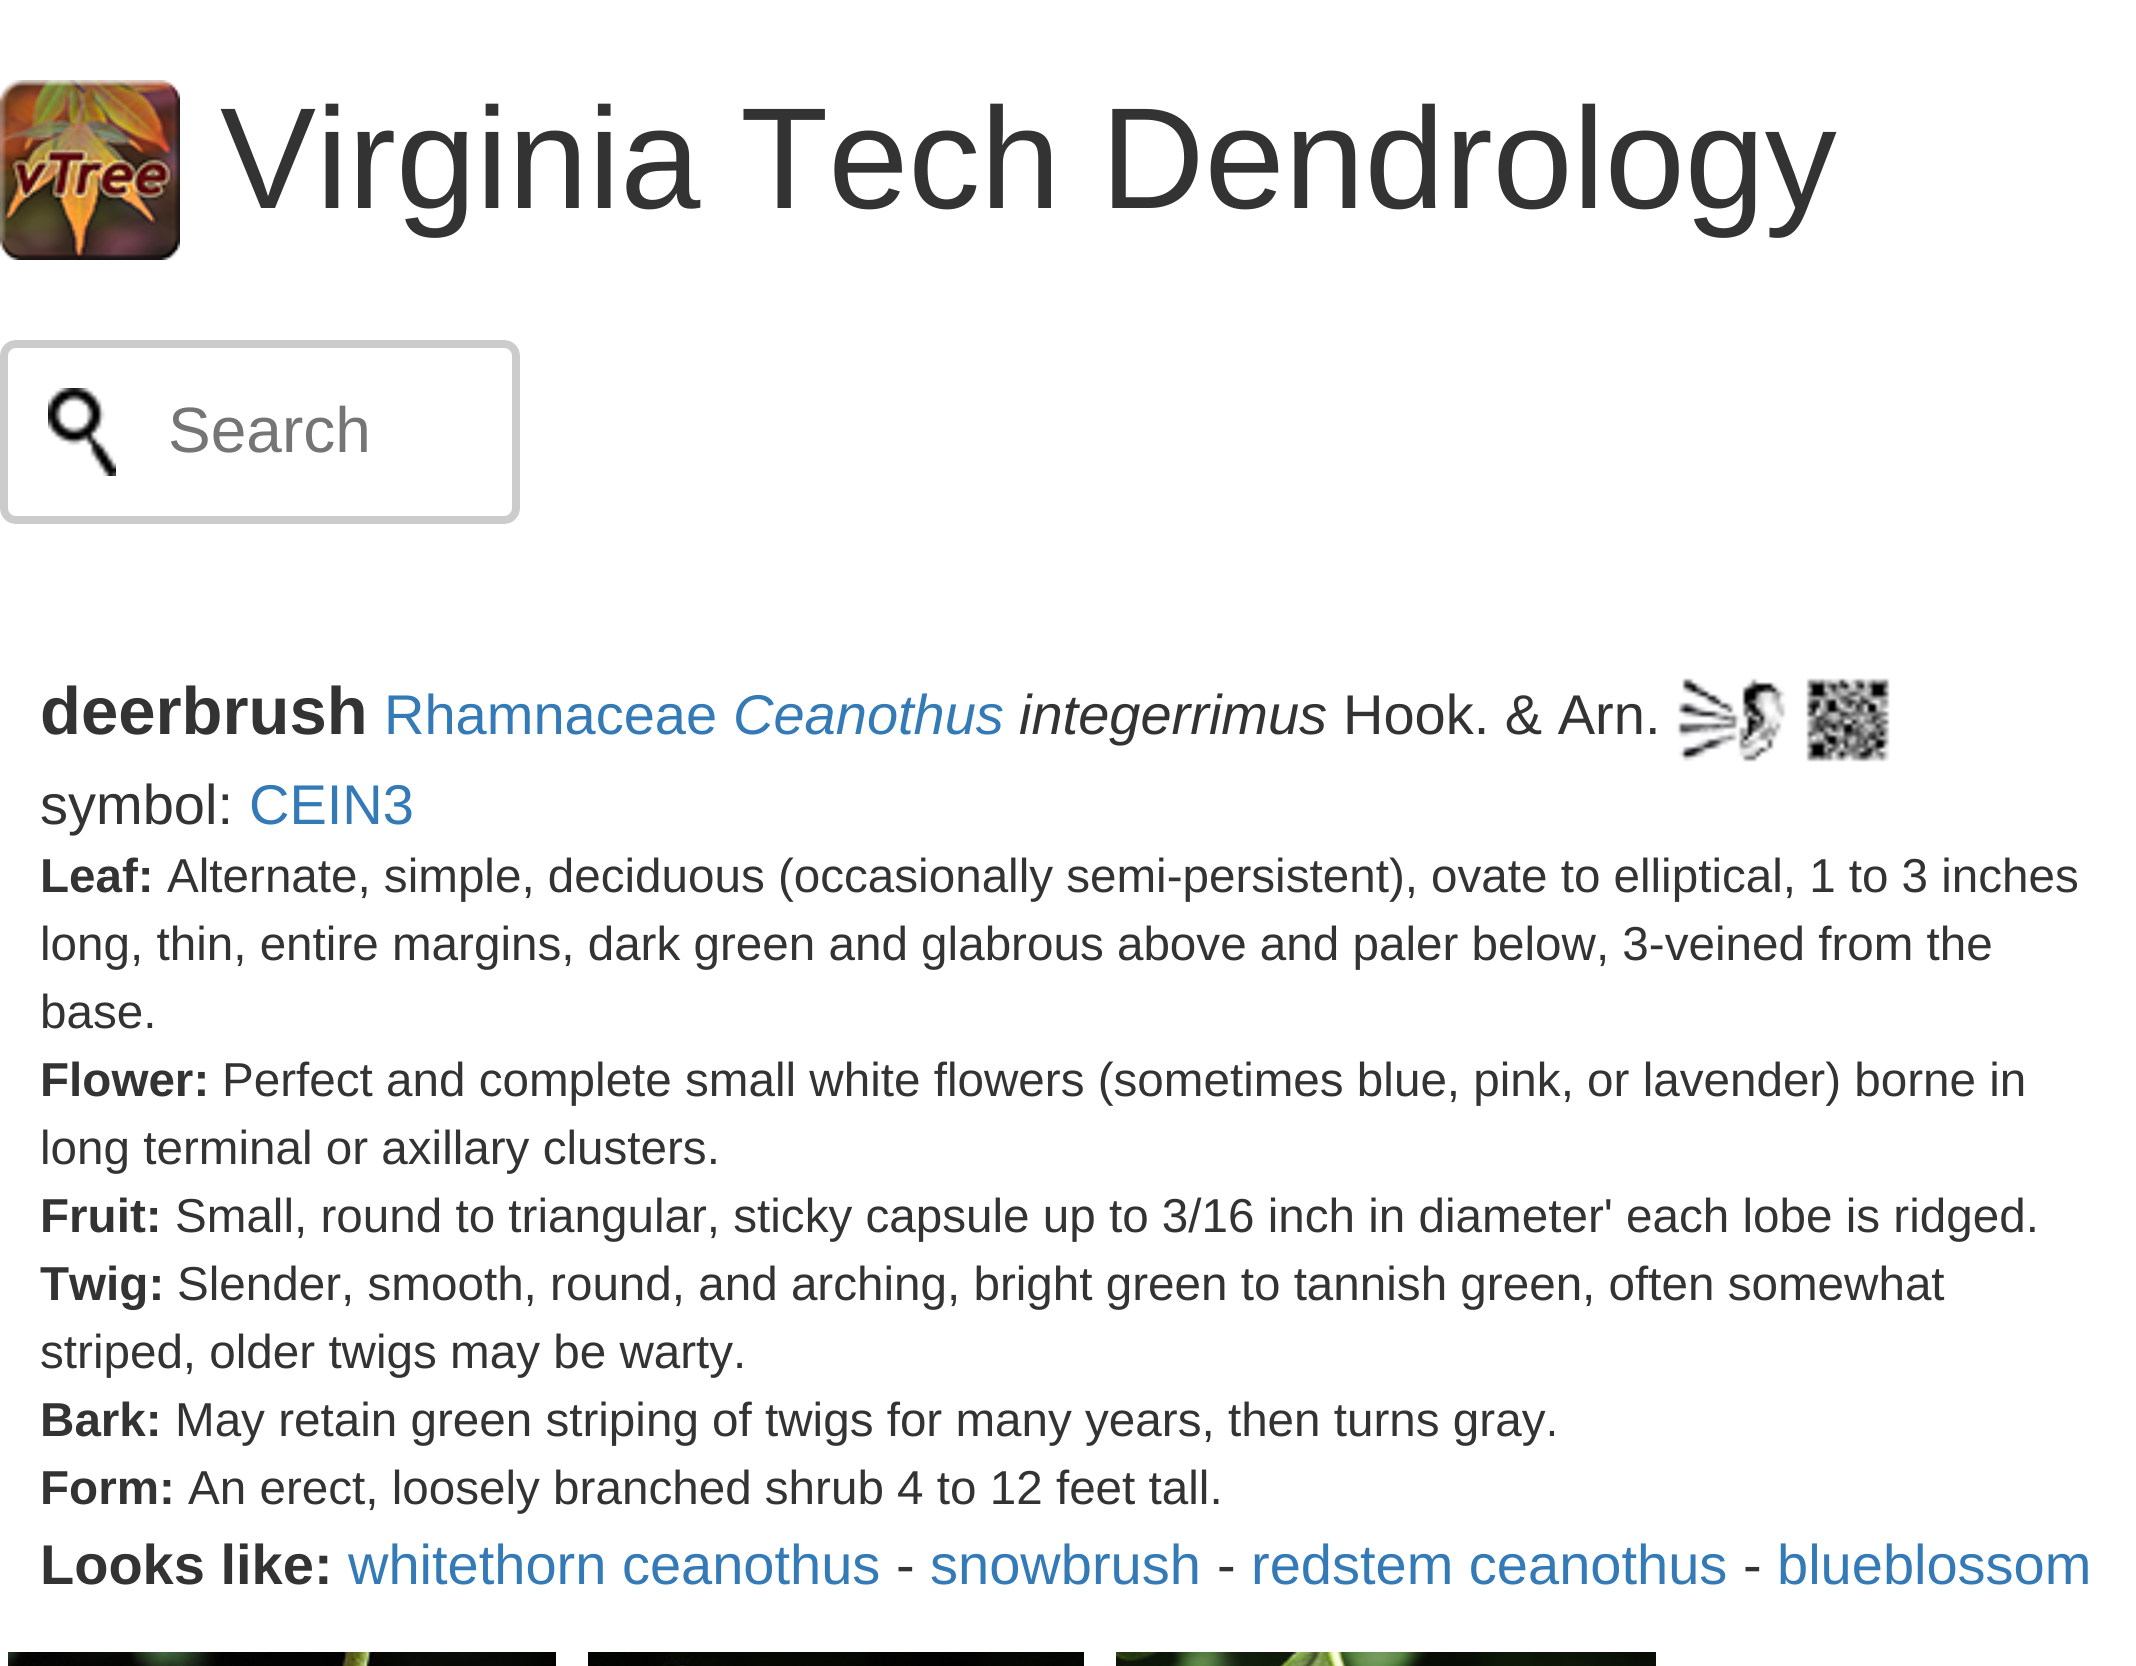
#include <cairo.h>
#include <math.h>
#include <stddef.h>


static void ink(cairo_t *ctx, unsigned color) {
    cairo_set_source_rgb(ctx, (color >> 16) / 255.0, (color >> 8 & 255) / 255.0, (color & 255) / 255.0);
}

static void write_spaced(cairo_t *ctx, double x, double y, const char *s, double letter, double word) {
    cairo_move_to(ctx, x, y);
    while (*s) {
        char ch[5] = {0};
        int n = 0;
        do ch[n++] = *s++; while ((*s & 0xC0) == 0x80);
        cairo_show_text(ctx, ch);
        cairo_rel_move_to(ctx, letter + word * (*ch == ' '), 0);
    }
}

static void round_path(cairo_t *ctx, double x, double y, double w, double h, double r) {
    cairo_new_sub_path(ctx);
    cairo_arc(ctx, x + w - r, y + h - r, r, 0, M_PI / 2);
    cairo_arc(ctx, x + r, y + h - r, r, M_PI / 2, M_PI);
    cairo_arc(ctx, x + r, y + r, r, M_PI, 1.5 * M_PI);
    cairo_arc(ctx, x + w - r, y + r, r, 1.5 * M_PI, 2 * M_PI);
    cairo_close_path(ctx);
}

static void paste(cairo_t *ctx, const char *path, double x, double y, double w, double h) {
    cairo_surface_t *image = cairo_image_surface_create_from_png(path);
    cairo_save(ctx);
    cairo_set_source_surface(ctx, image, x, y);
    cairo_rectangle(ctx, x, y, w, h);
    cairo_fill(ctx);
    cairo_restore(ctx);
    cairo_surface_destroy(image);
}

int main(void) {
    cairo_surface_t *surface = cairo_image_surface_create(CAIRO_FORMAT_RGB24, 2136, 1666);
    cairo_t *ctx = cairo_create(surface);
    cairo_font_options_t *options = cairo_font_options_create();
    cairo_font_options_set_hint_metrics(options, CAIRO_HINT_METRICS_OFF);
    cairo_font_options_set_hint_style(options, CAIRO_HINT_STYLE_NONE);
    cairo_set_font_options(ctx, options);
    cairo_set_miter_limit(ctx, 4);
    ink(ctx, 0xFFFFFF);
    cairo_paint(ctx);
    paste(ctx, "media/1.png", 0, 80, 180, 180);
    cairo_select_font_face(ctx, "Liberation Sans", CAIRO_FONT_SLANT_NORMAL, CAIRO_FONT_WEIGHT_NORMAL);
    cairo_set_font_size(ctx, 144);
    ink(ctx, 0x333333);
    cairo_move_to(ctx, 220, 208);
    cairo_show_text(ctx, "Virginia Tech Dendrology");
    paste(ctx, "media/2.png", 48, 388, 68, 88);
    round_path(ctx, 4, 344, 512, 176, 12);
    ink(ctx, 0xCCCCCC);
    cairo_set_line_width(ctx, 8);
    cairo_stroke(ctx);
    cairo_set_font_size(ctx, 64);
    ink(ctx, 0x757575);
    cairo_move_to(ctx, 168, 452);
    cairo_show_text(ctx, "Search");
    cairo_select_font_face(ctx, "Liberation Sans", CAIRO_FONT_SLANT_NORMAL, CAIRO_FONT_WEIGHT_BOLD);
    cairo_set_font_size(ctx, 67);
    ink(ctx, 0x333333);
    cairo_move_to(ctx, 40, 734);
    cairo_show_text(ctx, "deerbrush");
    cairo_select_font_face(ctx, "Liberation Sans", CAIRO_FONT_SLANT_NORMAL, CAIRO_FONT_WEIGHT_NORMAL);
    cairo_set_font_size(ctx, 56);
    ink(ctx, 0x337AB7);
    cairo_move_to(ctx, 384, 734);
    cairo_show_text(ctx, "Rhamnaceae");
    cairo_select_font_face(ctx, "Liberation Sans", CAIRO_FONT_SLANT_ITALIC, CAIRO_FONT_WEIGHT_NORMAL);
    cairo_move_to(ctx, 733, 734);
    cairo_show_text(ctx, "Ceanothus");
    ink(ctx, 0x333333);
    cairo_move_to(ctx, 1019, 734);
    cairo_show_text(ctx, "integerrimus");
    cairo_select_font_face(ctx, "Liberation Sans", CAIRO_FONT_SLANT_NORMAL, CAIRO_FONT_WEIGHT_NORMAL);
    cairo_move_to(ctx, 1343, 734);
    cairo_show_text(ctx, "Hook. & Arn.");
    paste(ctx, "media/3.png", 1676, 678, 110, 84);
    paste(ctx, "media/4.png", 1806, 678, 84, 84);
    cairo_move_to(ctx, 40, 824);
    cairo_show_text(ctx, "symbol:");
    ink(ctx, 0x337AB7);
    cairo_move_to(ctx, 249, 824);
    cairo_show_text(ctx, "CEIN3");
    cairo_select_font_face(ctx, "Liberation Sans", CAIRO_FONT_SLANT_NORMAL, CAIRO_FONT_WEIGHT_BOLD);
    cairo_set_font_size(ctx, 47.6);
    ink(ctx, 0x333333);
    cairo_move_to(ctx, 40, 892);
    cairo_show_text(ctx, "Leaf:");
    cairo_select_font_face(ctx, "Liberation Sans", CAIRO_FONT_SLANT_NORMAL, CAIRO_FONT_WEIGHT_NORMAL);
    write_spaced(ctx, 167, 892, "Alternate, simple, deciduous (occasionally semi-persistent), ovate to elliptical, 1 to 3 inches", 0, -0.1);
    cairo_move_to(ctx, 40, 960);
    cairo_show_text(ctx, "long, thin, entire margins, dark green and glabrous above and paler below, 3-veined from the");
    cairo_move_to(ctx, 40, 1028);
    cairo_show_text(ctx, "base.");
    cairo_select_font_face(ctx, "Liberation Sans", CAIRO_FONT_SLANT_NORMAL, CAIRO_FONT_WEIGHT_BOLD);
    cairo_move_to(ctx, 40, 1096);
    cairo_show_text(ctx, "Flower:");
    cairo_select_font_face(ctx, "Liberation Sans", CAIRO_FONT_SLANT_NORMAL, CAIRO_FONT_WEIGHT_NORMAL);
    cairo_move_to(ctx, 222, 1096);
    cairo_show_text(ctx, "Perfect and complete small white flowers (sometimes blue, pink, or lavender) borne in");
    cairo_move_to(ctx, 40, 1164);
    cairo_show_text(ctx, "long terminal or axillary clusters.");
    cairo_select_font_face(ctx, "Liberation Sans", CAIRO_FONT_SLANT_NORMAL, CAIRO_FONT_WEIGHT_BOLD);
    cairo_move_to(ctx, 40, 1232);
    cairo_show_text(ctx, "Fruit:");
    cairo_select_font_face(ctx, "Liberation Sans", CAIRO_FONT_SLANT_NORMAL, CAIRO_FONT_WEIGHT_NORMAL);
    cairo_move_to(ctx, 175, 1232);
    cairo_show_text(ctx, "Small, round to triangular, sticky capsule up to 3/16 inch in diameter' each lobe is ridged.");
    cairo_select_font_face(ctx, "Liberation Sans", CAIRO_FONT_SLANT_NORMAL, CAIRO_FONT_WEIGHT_BOLD);
    cairo_move_to(ctx, 40, 1300);
    cairo_show_text(ctx, "Twig:");
    cairo_select_font_face(ctx, "Liberation Sans", CAIRO_FONT_SLANT_NORMAL, CAIRO_FONT_WEIGHT_NORMAL);
    cairo_move_to(ctx, 177, 1300);
    cairo_show_text(ctx, "Slender, smooth, round, and arching, bright green to tannish green, often somewhat");
    cairo_move_to(ctx, 40, 1368);
    cairo_show_text(ctx, "striped, older twigs may be warty.");
    cairo_select_font_face(ctx, "Liberation Sans", CAIRO_FONT_SLANT_NORMAL, CAIRO_FONT_WEIGHT_BOLD);
    cairo_move_to(ctx, 40, 1436);
    cairo_show_text(ctx, "Bark:");
    cairo_select_font_face(ctx, "Liberation Sans", CAIRO_FONT_SLANT_NORMAL, CAIRO_FONT_WEIGHT_NORMAL);
    cairo_move_to(ctx, 175, 1436);
    cairo_show_text(ctx, "May retain green striping of twigs for many years, then turns gray.");
    cairo_select_font_face(ctx, "Liberation Sans", CAIRO_FONT_SLANT_NORMAL, CAIRO_FONT_WEIGHT_BOLD);
    cairo_move_to(ctx, 40, 1504);
    cairo_show_text(ctx, "Form:");
    cairo_select_font_face(ctx, "Liberation Sans", CAIRO_FONT_SLANT_NORMAL, CAIRO_FONT_WEIGHT_NORMAL);
    cairo_move_to(ctx, 188, 1504);
    cairo_show_text(ctx, "An erect, loosely branched shrub 4 to 12 feet tall.");
    cairo_select_font_face(ctx, "Liberation Sans", CAIRO_FONT_SLANT_NORMAL, CAIRO_FONT_WEIGHT_BOLD);
    cairo_set_font_size(ctx, 56);
    cairo_move_to(ctx, 40, 1584);
    cairo_show_text(ctx, "Looks like:");
    cairo_select_font_face(ctx, "Liberation Sans", CAIRO_FONT_SLANT_NORMAL, CAIRO_FONT_WEIGHT_NORMAL);
    ink(ctx, 0x337AB7);
    cairo_move_to(ctx, 348, 1584);
    cairo_show_text(ctx, "whitethorn ceanothus");
    ink(ctx, 0x333333);
    cairo_move_to(ctx, 896, 1584);
    cairo_show_text(ctx, "-");
    ink(ctx, 0x337AB7);
    cairo_move_to(ctx, 930, 1584);
    cairo_show_text(ctx, "snowbrush");
    ink(ctx, 0x333333);
    cairo_move_to(ctx, 1217, 1584);
    cairo_show_text(ctx, "-");
    ink(ctx, 0x337AB7);
    cairo_move_to(ctx, 1251, 1584);
    cairo_show_text(ctx, "redstem ceanothus");
    ink(ctx, 0x333333);
    cairo_move_to(ctx, 1743, 1584);
    cairo_show_text(ctx, "-");
    ink(ctx, 0x337AB7);
    cairo_move_to(ctx, 1777, 1584);
    cairo_show_text(ctx, "blueblossom");
    paste(ctx, "media/5.png", 8, 1652, 548, 14);
    paste(ctx, "media/6.png", 588, 1652, 496, 14);
    paste(ctx, "media/7.png", 1116, 1652, 540, 14);
    cairo_surface_write_to_png(surface, "image.png");
    cairo_font_options_destroy(options);
    cairo_destroy(ctx);
    cairo_surface_destroy(surface);
    return 0;
}
